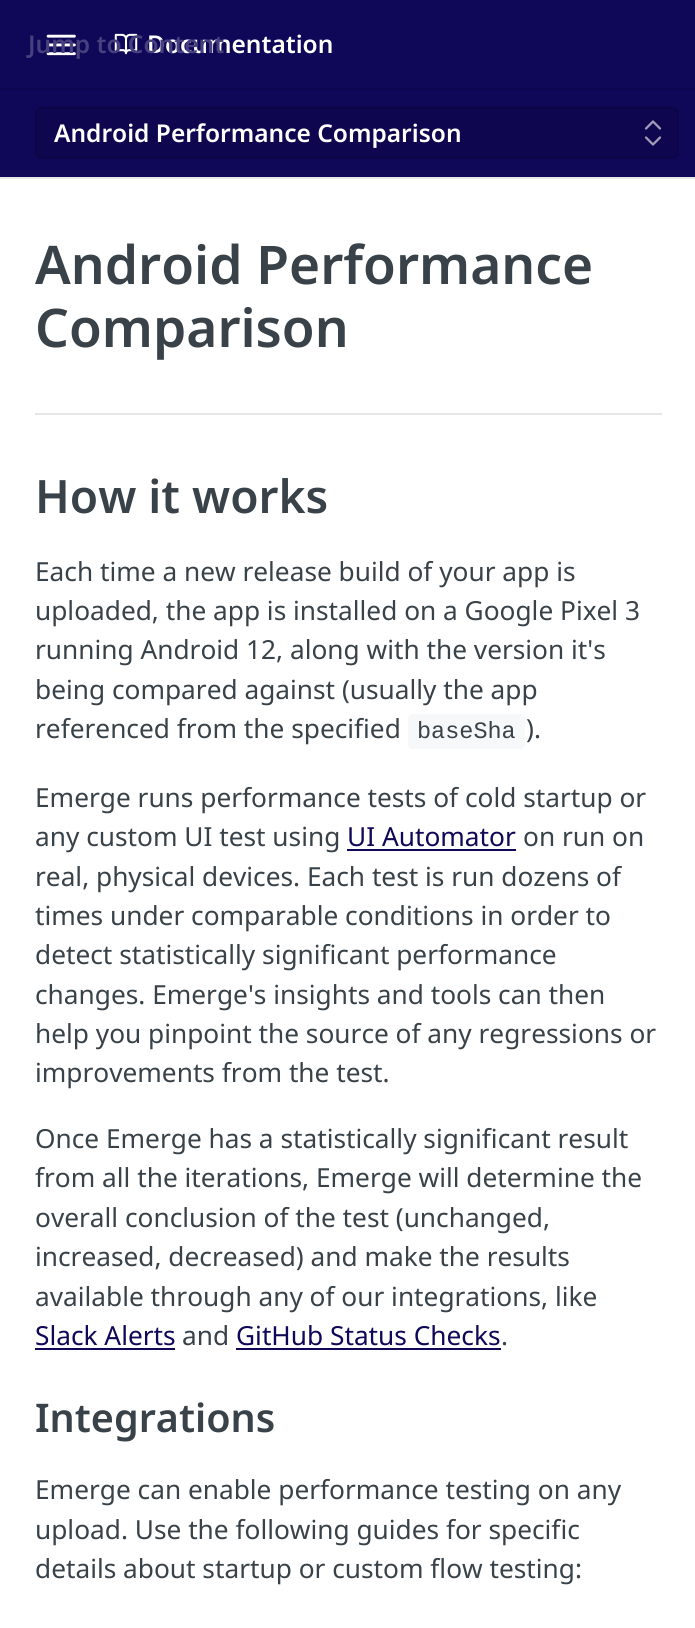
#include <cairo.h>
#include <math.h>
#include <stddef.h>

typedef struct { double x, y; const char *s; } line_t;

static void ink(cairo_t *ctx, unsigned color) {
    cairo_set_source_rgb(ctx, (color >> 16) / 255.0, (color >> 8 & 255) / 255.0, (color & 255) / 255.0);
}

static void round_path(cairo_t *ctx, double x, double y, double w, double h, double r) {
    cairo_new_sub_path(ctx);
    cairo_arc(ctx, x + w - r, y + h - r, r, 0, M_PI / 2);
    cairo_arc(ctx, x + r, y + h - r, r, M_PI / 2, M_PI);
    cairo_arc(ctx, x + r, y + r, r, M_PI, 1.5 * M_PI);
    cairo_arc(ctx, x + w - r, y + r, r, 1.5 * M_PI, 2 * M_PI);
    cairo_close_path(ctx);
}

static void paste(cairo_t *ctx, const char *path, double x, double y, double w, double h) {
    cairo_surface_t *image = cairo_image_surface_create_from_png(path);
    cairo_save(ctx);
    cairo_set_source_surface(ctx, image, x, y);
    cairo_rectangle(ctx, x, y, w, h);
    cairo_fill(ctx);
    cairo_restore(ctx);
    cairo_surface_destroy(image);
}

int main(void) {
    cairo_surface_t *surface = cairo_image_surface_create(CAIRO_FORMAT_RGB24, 695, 1628);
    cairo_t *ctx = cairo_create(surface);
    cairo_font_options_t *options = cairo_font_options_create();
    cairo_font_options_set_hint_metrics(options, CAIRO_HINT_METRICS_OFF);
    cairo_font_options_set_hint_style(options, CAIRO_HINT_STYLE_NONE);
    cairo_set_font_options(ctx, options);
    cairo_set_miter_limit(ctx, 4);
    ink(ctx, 0xFFFFFF);
    cairo_paint(ctx);
    ink(ctx, 0xE6E6E6);
    cairo_new_path(ctx);
    cairo_move_to(ctx, 0, 177);
    cairo_line_to(ctx, 0, 179);
    cairo_line_to(ctx, 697, 179);
    cairo_line_to(ctx, 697, 2);
    cairo_line_to(ctx, 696, 2);
    cairo_line_to(ctx, 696, 177);
    cairo_close_path(ctx);
    cairo_fill(ctx);
    ink(ctx, 0x0F0757);
    cairo_rectangle(ctx, 0, 0, 695, 177);
    cairo_fill(ctx);
    ink(ctx, 0x0E064E);
    cairo_rectangle(ctx, 0, 88, 695, 2);
    cairo_fill(ctx);
    paste(ctx, "media/1.png", 46, 34, 30, 22);
    paste(ctx, "media/2.png", 114, 33, 24, 22);
    cairo_select_font_face(ctx, "Noto Sans SemiBold", CAIRO_FONT_SLANT_NORMAL, CAIRO_FONT_WEIGHT_NORMAL);
    cairo_set_font_size(ctx, 24.5);
    ink(ctx, 0xFFFFFF);
    cairo_move_to(ctx, 147, 53);
    cairo_show_text(ctx, "Documentation");
    ink(ctx, 0x46407E);
    cairo_move_to(ctx, 28, 53);
    cairo_show_text(ctx, "Jump to Content");
    ink(ctx, 0x0E064E);
    round_path(ctx, 35, 107, 644, 52, 7);
    cairo_fill(ctx);
    round_path(ctx, 36, 108, 642, 50, 6);
    cairo_set_source_rgba(ctx, 0, 0, 0, 0.1);
    cairo_stroke(ctx);
    ink(ctx, 0xFFFFFF);
    cairo_move_to(ctx, 54, 142);
    cairo_show_text(ctx, "Android Performance Comparison");
    cairo_new_path(ctx);
    cairo_move_to(ctx, 646, 137.5);
    cairo_line_to(ctx, 653, 144.5);
    cairo_line_to(ctx, 660, 137.5);
    cairo_move_to(ctx, 660, 128.5);
    cairo_line_to(ctx, 653, 121.5);
    cairo_line_to(ctx, 646, 128.5);
    ink(ctx, 0x9F9BB8);
    cairo_set_line_width(ctx, 2.3);
    cairo_set_line_cap(ctx, CAIRO_LINE_CAP_ROUND);
    cairo_set_line_join(ctx, CAIRO_LINE_JOIN_ROUND);
    cairo_stroke(ctx);
    ink(ctx, 0xE6E6E6);
    cairo_rectangle(ctx, 35, 413, 627, 2);
    cairo_fill(ctx);
    cairo_set_font_size(ctx, 53.25);
    ink(ctx, 0x384248);
    cairo_move_to(ctx, 35, 284);
    cairo_show_text(ctx, "Android Performance");
    cairo_move_to(ctx, 35, 347);
    cairo_show_text(ctx, "Comparison");
    cairo_set_font_size(ctx, 46);
    cairo_move_to(ctx, 35, 513);
    cairo_show_text(ctx, "How it works");
    cairo_select_font_face(ctx, "Noto Sans", CAIRO_FONT_SLANT_NORMAL, CAIRO_FONT_WEIGHT_NORMAL);
    cairo_set_font_size(ctx, 26.25);
    {
        static const line_t items[] = {
            {35, 581, "Each time a new release build of your app is"},
            {35, 620, "uploaded, the app is installed on a Google Pixel 3"},
            {35, 659, "running Android 12, along with the version it's"},
            {35, 699, "being compared against (usually the app"},
            {35, 738, "referenced from the specified"},
        };
        for (size_t i = 0; i < sizeof items / sizeof *items; i++) {
            cairo_move_to(ctx, items[i].x, items[i].y);
            cairo_show_text(ctx, items[i].s);
        }
    }
    ink(ctx, 0xF6F8FA);
    round_path(ctx, 408, 714, 117, 35, 5);
    cairo_fill(ctx);
    cairo_select_font_face(ctx, "Liberation Mono", CAIRO_FONT_SLANT_NORMAL, CAIRO_FONT_WEIGHT_NORMAL);
    cairo_set_font_size(ctx, 23.5);
    ink(ctx, 0x384248);
    cairo_move_to(ctx, 417, 738);
    cairo_show_text(ctx, "baseSha");
    cairo_select_font_face(ctx, "Noto Sans", CAIRO_FONT_SLANT_NORMAL, CAIRO_FONT_WEIGHT_NORMAL);
    cairo_set_font_size(ctx, 26.25);
    {
        static const line_t items[] = {
            {526, 738, ")."},
            {35, 807, "Emerge runs performance tests of cold startup or"},
            {35, 846, "any custom UI test using"},
        };
        for (size_t i = 0; i < sizeof items / sizeof *items; i++) {
            cairo_move_to(ctx, items[i].x, items[i].y);
            cairo_show_text(ctx, items[i].s);
        }
    }
    ink(ctx, 0x0F0757);
    cairo_move_to(ctx, 347, 846);
    cairo_show_text(ctx, "UI Automator");
    cairo_rectangle(ctx, 347, 849, 169, 2);
    cairo_fill(ctx);
    ink(ctx, 0x384248);
    {
        static const line_t items[] = {
            {523, 846, "on run on"},
            {35, 886, "real, physical devices. Each test is run dozens of"},
            {35, 925, "times under comparable conditions in order to"},
            {35, 964, "detect statistically significant performance"},
            {35, 1004, "changes. Emerge's insights and tools can then"},
            {35, 1043, "help you pinpoint the source of any regressions or"},
            {35, 1082, "improvements from the test."},
            {35, 1148, "Once Emerge has a statistically significant result"},
            {35, 1187, "from all the iterations, Emerge will determine the"},
            {35, 1227, "overall conclusion of the test (unchanged,"},
            {35, 1266, "increased, decreased) and make the results"},
            {35, 1306, "available through any of our integrations, like"},
        };
        for (size_t i = 0; i < sizeof items / sizeof *items; i++) {
            cairo_move_to(ctx, items[i].x, items[i].y);
            cairo_show_text(ctx, items[i].s);
        }
    }
    ink(ctx, 0x0F0757);
    cairo_move_to(ctx, 35, 1345);
    cairo_show_text(ctx, "Slack Alerts");
    cairo_rectangle(ctx, 35, 1348, 140, 2);
    cairo_fill(ctx);
    ink(ctx, 0x384248);
    cairo_move_to(ctx, 182, 1345);
    cairo_show_text(ctx, "and");
    ink(ctx, 0x0F0757);
    cairo_move_to(ctx, 236, 1345);
    cairo_show_text(ctx, "GitHub Status Checks");
    cairo_rectangle(ctx, 236, 1348, 265, 2);
    cairo_fill(ctx);
    ink(ctx, 0x384248);
    cairo_move_to(ctx, 501, 1345);
    cairo_show_text(ctx, ".");
    cairo_select_font_face(ctx, "Noto Sans SemiBold", CAIRO_FONT_SLANT_NORMAL, CAIRO_FONT_WEIGHT_NORMAL);
    cairo_set_font_size(ctx, 39.5);
    cairo_move_to(ctx, 35, 1432);
    cairo_show_text(ctx, "Integrations");
    cairo_select_font_face(ctx, "Noto Sans", CAIRO_FONT_SLANT_NORMAL, CAIRO_FONT_WEIGHT_NORMAL);
    cairo_set_font_size(ctx, 26.25);
    {
        static const line_t items[] = {
            {35, 1499, "Emerge can enable performance testing on any"},
            {35, 1539, "upload. Use the following guides for specific"},
            {35, 1578, "details about startup or custom flow testing:"},
        };
        for (size_t i = 0; i < sizeof items / sizeof *items; i++) {
            cairo_move_to(ctx, items[i].x, items[i].y);
            cairo_show_text(ctx, items[i].s);
        }
    }
    cairo_surface_write_to_png(surface, "image.png");
    cairo_font_options_destroy(options);
    cairo_destroy(ctx);
    cairo_surface_destroy(surface);
    return 0;
}
